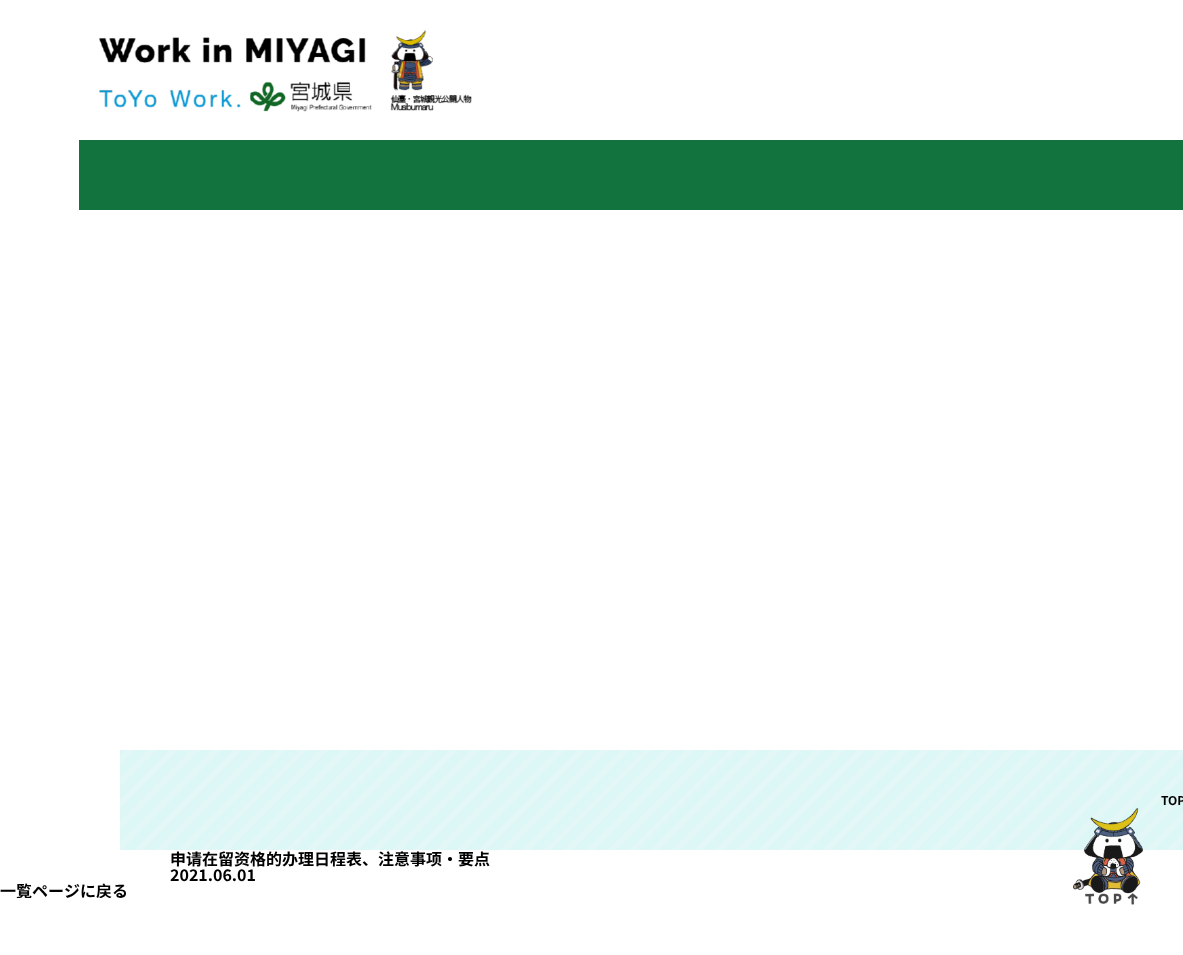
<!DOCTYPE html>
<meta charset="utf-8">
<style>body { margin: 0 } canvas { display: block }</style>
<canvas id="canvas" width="1183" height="955"></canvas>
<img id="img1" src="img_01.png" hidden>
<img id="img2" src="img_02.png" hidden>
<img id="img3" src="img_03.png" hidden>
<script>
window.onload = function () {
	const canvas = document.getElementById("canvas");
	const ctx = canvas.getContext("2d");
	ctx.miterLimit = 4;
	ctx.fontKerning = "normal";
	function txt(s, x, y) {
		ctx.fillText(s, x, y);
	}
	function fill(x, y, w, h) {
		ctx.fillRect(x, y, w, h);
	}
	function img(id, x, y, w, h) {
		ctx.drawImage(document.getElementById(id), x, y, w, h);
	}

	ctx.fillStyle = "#FFFFFF";
	fill(0, 0, 1183, 955);
	img("img1", 99, 30, 373, 82);
	ctx.fillStyle = "#13733E";
	fill(79, 140, 1104, 70);
	ctx.fillStyle = "#DDF6F6";
	fill(120, 750, 1063, 100);
	img("img2", 120, 750, 1063, 100);
	img("img3", 1073, 808, 70, 97);
	ctx.font = "100 12px Noto Sans SC";
	ctx.fillStyle = "#000000";
	txt("TOP", 1161, 805);
	ctx.font = "100 16px Noto Sans SC";
	txt("申请在留资格的办理日程表、注意事项・要点", 170, 865);
	txt("2021.06.01", 170, 881);
	ctx.save();
	ctx.beginPath();
	ctx.rect(0, 882, 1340, 16);
	ctx.clip();
	txt("一覧ページに戻る", 0, 897);
	ctx.restore();
};
</script>
